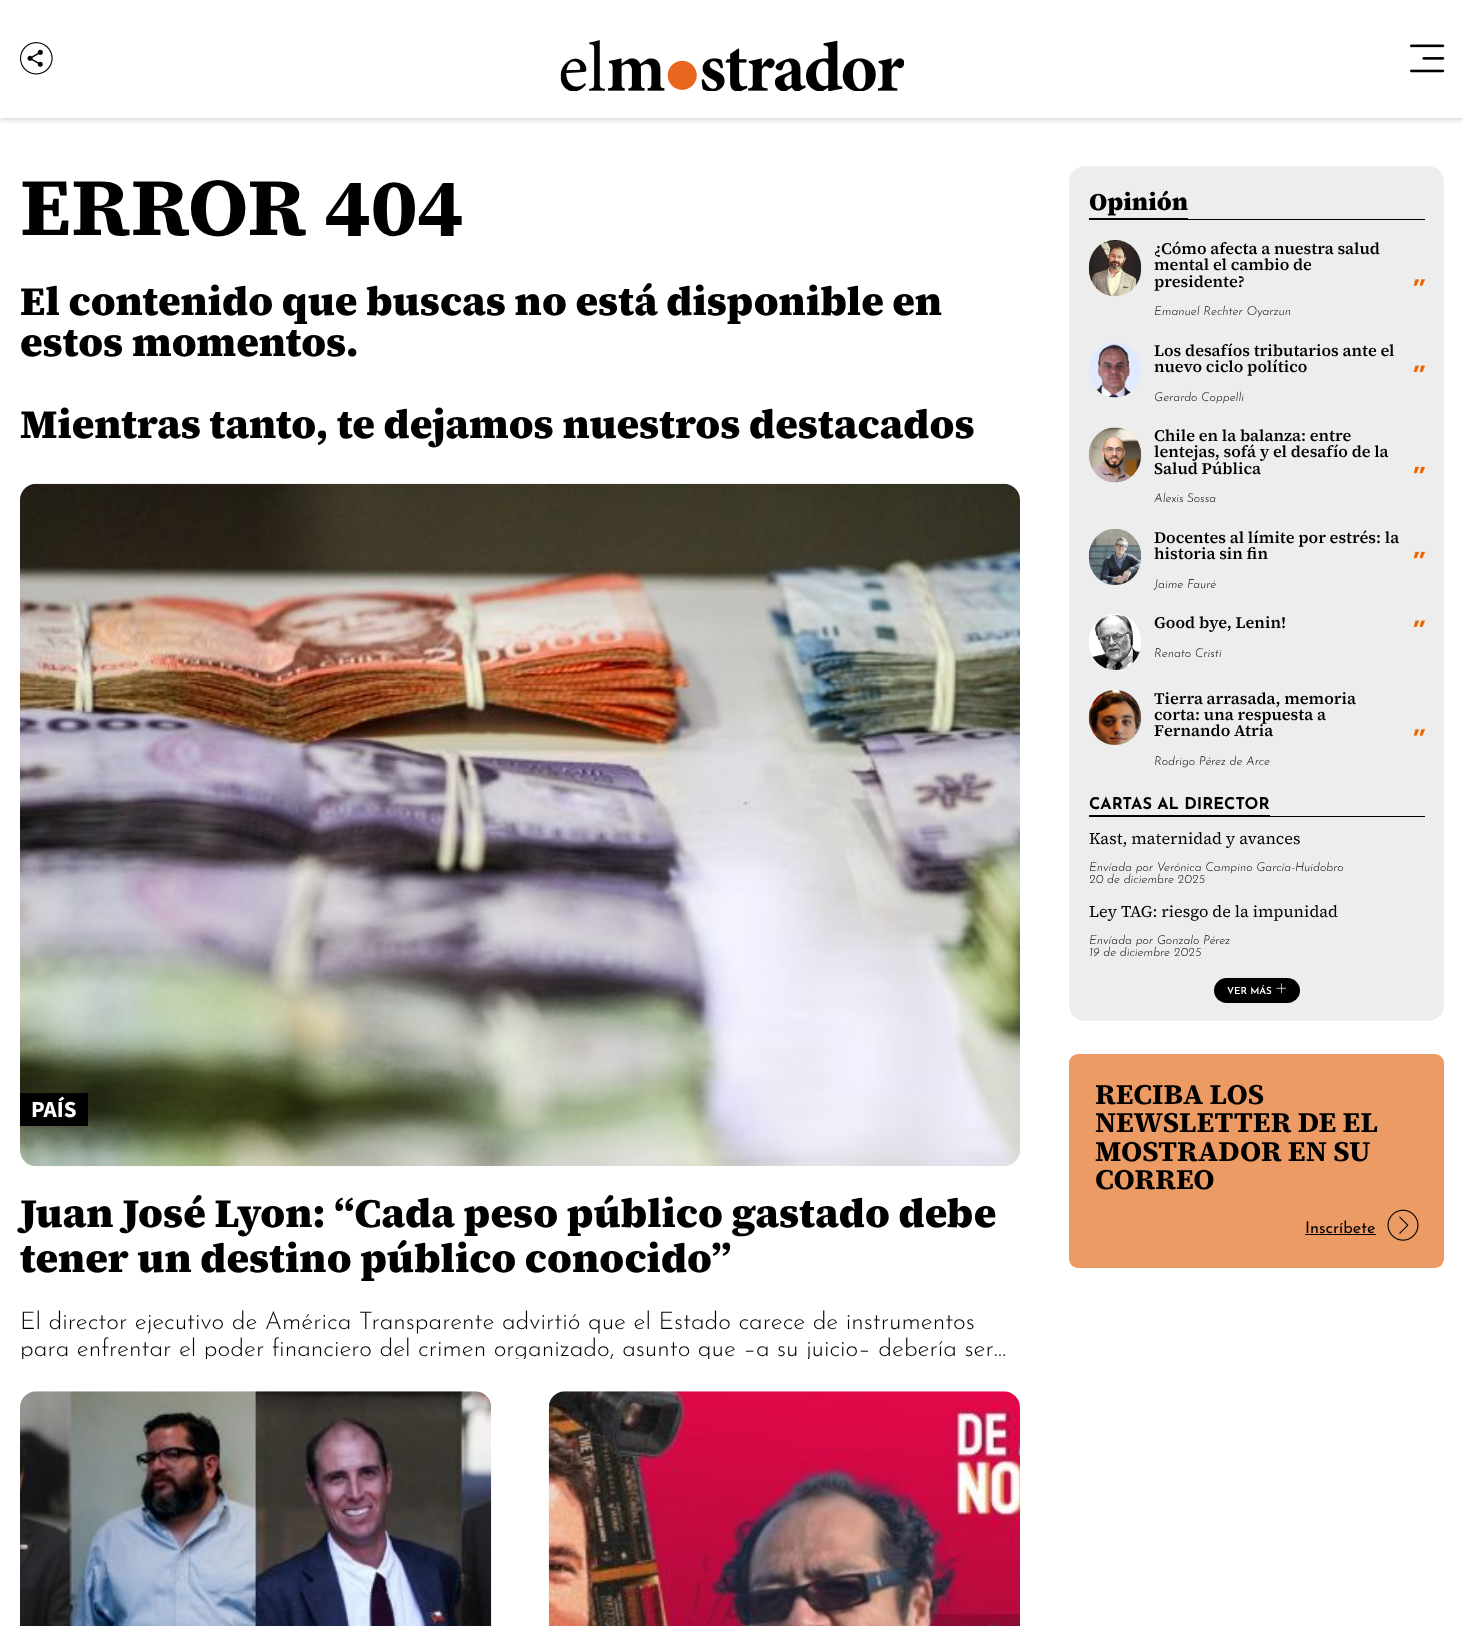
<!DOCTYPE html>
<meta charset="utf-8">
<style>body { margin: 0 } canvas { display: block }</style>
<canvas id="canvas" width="1463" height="1626"></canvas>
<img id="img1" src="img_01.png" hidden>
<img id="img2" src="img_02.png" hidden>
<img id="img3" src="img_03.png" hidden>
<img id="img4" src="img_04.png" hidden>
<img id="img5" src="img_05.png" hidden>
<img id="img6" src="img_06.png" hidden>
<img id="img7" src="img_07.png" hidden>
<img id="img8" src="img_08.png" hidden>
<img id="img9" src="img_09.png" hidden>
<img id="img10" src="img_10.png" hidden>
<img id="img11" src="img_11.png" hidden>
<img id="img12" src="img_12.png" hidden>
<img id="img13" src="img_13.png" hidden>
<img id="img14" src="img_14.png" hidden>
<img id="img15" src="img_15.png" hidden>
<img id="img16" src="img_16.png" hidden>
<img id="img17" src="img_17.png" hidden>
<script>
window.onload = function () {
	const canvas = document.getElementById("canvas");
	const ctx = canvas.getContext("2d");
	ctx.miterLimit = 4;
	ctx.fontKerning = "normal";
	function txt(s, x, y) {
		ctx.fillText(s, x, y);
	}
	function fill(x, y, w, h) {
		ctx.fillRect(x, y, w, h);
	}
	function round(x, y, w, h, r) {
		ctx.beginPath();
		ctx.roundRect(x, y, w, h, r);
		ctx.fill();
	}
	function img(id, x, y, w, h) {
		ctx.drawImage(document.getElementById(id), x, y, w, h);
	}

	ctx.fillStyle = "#FFFFFF";
	fill(0, 0, 1463, 1626);
	ctx.fillStyle = "rgba(0, 0, 0, 0.16)";
	ctx.filter = "blur(2.5px)";
	ctx.beginPath();
	ctx.rect(0, 3, 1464, 117);
	ctx.fill();
	ctx.filter = "none";
	ctx.fillStyle = "#FFFFFF";
	fill(0, 0, 1463, 118);
	img("img1", 20, 42, 33, 33);
	img("img2", 560, 40, 344, 51);
	img("img3", 1410, 44, 35, 29);
	img("img4", 20, 483, 1000, 684);
	ctx.fillStyle = "#000000";
	fill(20, 1093, 68, 33);
	img("img5", 20, 1391, 472, 235);
	img("img6", 548, 1391, 472, 235);
	ctx.fillStyle = "#EDEDED";
	round(1069, 166, 375, 855, 16);
	ctx.fillStyle = "#000000";
	fill(1089, 219, 336, 1);
	fill(1089, 218, 99, 1);
	img("img7", 1088, 240, 54, 57);
	img("img8", 1413, 279, 13, 7);
	img("img9", 1089, 342, 52, 56);
	img("img10", 1413, 365, 13, 7);
	img("img11", 1088, 427, 54, 56);
	img("img12", 1413, 466, 12, 8);
	img("img13", 1088, 528, 54, 57);
	img("img12", 1413, 551, 12, 8);
	img("img14", 1089, 614, 52, 56);
	img("img10", 1413, 620, 13, 7);
	img("img15", 1088, 690, 54, 55);
	img("img8", 1413, 729, 13, 7);
	fill(1089, 816, 336, 1);
	fill(1089, 815, 181, 1);
	round(1214, 978, 86, 25, 12.5);
	img("img16", 1276, 983, 10, 11);
	ctx.fillStyle = "#ED9B64";
	round(1069, 1054, 375, 214, 9);
	ctx.fillStyle = "#000000";
	fill(1305, 1234, 71, 1);
	img("img17", 1387, 1209, 32, 32);
	ctx.font = "bold 81.5px 'Source Serif 4'";
	txt("ERROR 404", 20, 235);
	ctx.font = "900 40.75px 'Source Serif 4'";
	txt("El contenido que buscas no está disponible en", 20, 315);
	txt("estos momentos.", 20, 356);
	txt("Mientras tanto, te dejamos nuestros destacados", 20, 438);
	ctx.font = "bold 23px Source Sans Pro";
	ctx.fillStyle = "#FFFFFF";
	txt("PAÍS", 31, 1117);
	ctx.font = "900 40.75px 'Source Serif 4'";
	ctx.fillStyle = "#000000";
	txt("Juan José Lyon: “Cada peso público gastado debe", 20, 1227);
	txt("tener un destino público conocido”", 20, 1272);
	ctx.font = "300 24.45px Josefin Sans";
	txt("El director ejecutivo de América Transparente advirtió que el Estado carece de instrumentos", 20, 1329);
	ctx.save();
	ctx.beginPath();
	ctx.rect(20, 1305, 1000, 54);
	ctx.clip();
	txt("para enfrentar el poder financiero del crimen organizado, asunto que –a su juicio– debería ser…", 20, 1356);
	ctx.restore();
	ctx.font = "900 24.45px 'Source Serif 4'";
	txt("Opinión", 1089, 210);
	ctx.font = "600 16.25px 'Source Serif 4'";
	txt("¿Cómo afecta a nuestra salud", 1154, 254);
	txt("mental el cambio de", 1154, 270);
	txt("presidente?", 1154, 287);
	ctx.font = "italic 300 12.25px Josefin Sans";
	txt("Emanuel Rechter Oyarzun", 1154, 315);
	ctx.font = "600 16.25px 'Source Serif 4'";
	txt("Los desafíos tributarios ante el", 1154, 356);
	txt("nuevo ciclo político", 1154, 372);
	ctx.font = "italic 300 12.25px Josefin Sans";
	txt("Gerardo Coppelli", 1154, 401);
	ctx.font = "600 16.25px 'Source Serif 4'";
	txt("Chile en la balanza: entre", 1154, 441);
	txt("lentejas, sofá y el desafío de la", 1154, 457);
	txt("Salud Pública", 1154, 474);
	ctx.font = "italic 300 12.25px Josefin Sans";
	txt("Alexis Sossa", 1154, 502);
	ctx.font = "600 16.25px 'Source Serif 4'";
	txt("Docentes al límite por estrés: la", 1154, 543);
	txt("historia sin fin", 1154, 559);
	ctx.font = "italic 300 12.25px Josefin Sans";
	txt("Jaime Fauré", 1154, 588);
	ctx.font = "600 16.25px 'Source Serif 4'";
	txt("Good bye, Lenin!", 1154, 628);
	ctx.font = "italic 300 12.25px Josefin Sans";
	txt("Renato Cristi", 1154, 657);
	ctx.font = "600 16.25px 'Source Serif 4'";
	txt("Tierra arrasada, memoria", 1154, 704);
	txt("corta: una respuesta a", 1154, 720);
	txt("Fernando Atria", 1154, 736);
	ctx.font = "italic 300 12.25px Josefin Sans";
	txt("Rodrigo Pérez de Arce", 1154, 765);
	ctx.font = "bold 16.25px Josefin Sans";
	txt("CARTAS AL DIRECTOR", 1089, 809);
	ctx.font = "16.25px 'Source Serif 4'";
	txt("Kast, maternidad y avances", 1089, 844);
	ctx.font = "italic 300 12.25px Josefin Sans";
	txt("Envíada por Verónica Campino García-Huidobro", 1089, 871);
	txt("20 de diciembre 2025", 1089, 883);
	ctx.font = "16.25px 'Source Serif 4'";
	txt("Ley TAG: riesgo de la impunidad", 1089, 917);
	ctx.font = "italic 300 12.25px Josefin Sans";
	txt("Envíada por Gonzalo Pérez", 1089, 944);
	txt("19 de diciembre 2025", 1089, 956);
	ctx.font = "600 9.75px Josefin Sans";
	ctx.fillStyle = "#FFFFFF";
	txt("VER MÁS", 1227, 994);
	ctx.font = "bold 28.5px 'Source Serif 4'";
	ctx.fillStyle = "#000000";
	txt("RECIBA LOS", 1095, 1104);
	txt("NEWSLETTER DE EL", 1095, 1132);
	txt("MOSTRADOR EN SU", 1095, 1161);
	txt("CORREO", 1095, 1189);
	ctx.font = "16.25px Josefin Sans";
	txt("Inscríbete", 1305, 1233);
};
</script>
